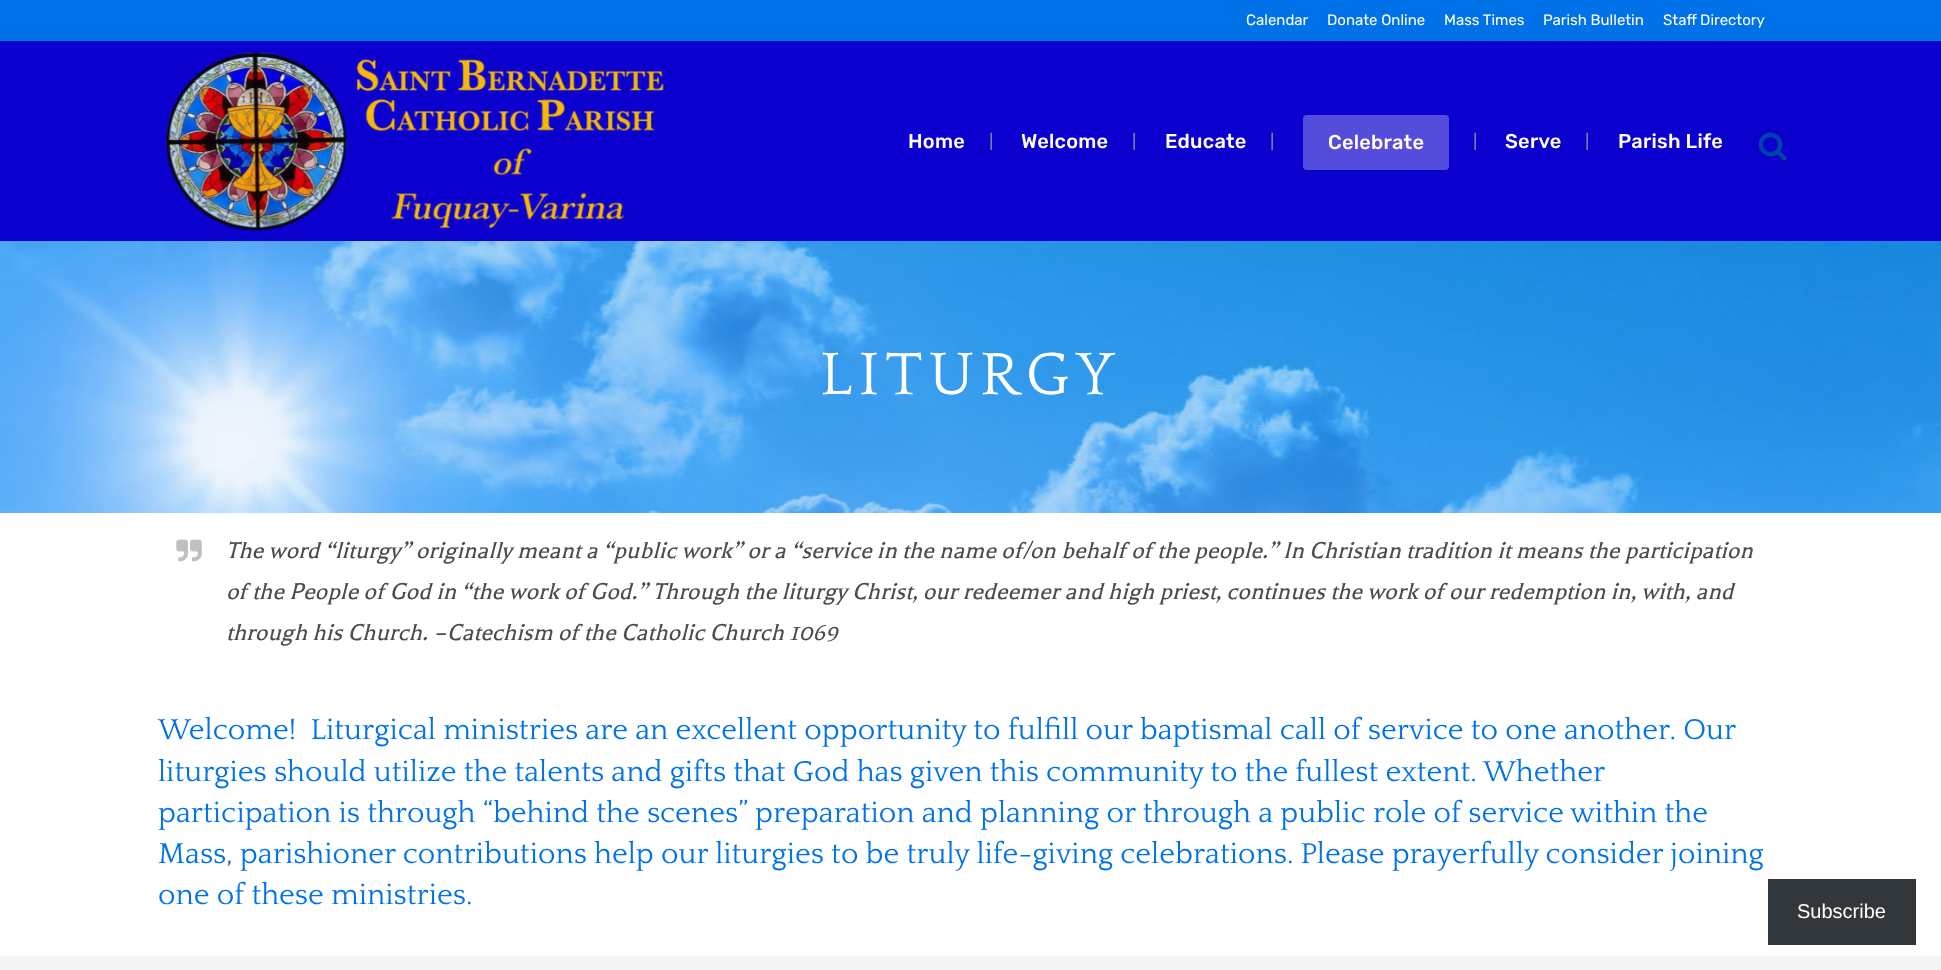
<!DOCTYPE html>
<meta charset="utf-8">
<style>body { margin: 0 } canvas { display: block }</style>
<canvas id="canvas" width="1941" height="970"></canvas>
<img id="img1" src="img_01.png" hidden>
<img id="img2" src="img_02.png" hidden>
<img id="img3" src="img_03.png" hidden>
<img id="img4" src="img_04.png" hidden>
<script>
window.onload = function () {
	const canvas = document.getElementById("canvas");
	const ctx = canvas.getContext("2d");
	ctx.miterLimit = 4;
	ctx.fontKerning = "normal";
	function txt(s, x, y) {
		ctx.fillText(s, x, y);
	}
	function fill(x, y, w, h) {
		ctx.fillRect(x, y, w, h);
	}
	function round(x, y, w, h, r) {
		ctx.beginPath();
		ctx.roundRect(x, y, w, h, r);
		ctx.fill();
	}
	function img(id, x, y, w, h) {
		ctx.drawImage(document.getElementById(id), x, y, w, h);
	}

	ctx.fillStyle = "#FFFFFF";
	fill(0, 0, 1941, 970);
	ctx.fillStyle = "#0072E9";
	fill(0, 0, 1941, 41);
	ctx.fillStyle = "#0B00CD";
	fill(0, 41, 1941, 200);
	img("img1", 165, 52, 499, 180);
	ctx.fillStyle = "#544DDC";
	round(1303, 115, 146, 55, 4);
	img("img2", 1758, 132, 29, 29);
	img("img3", 0, 241, 1941, 272);
	img("img4", 176, 539, 26, 23);
	ctx.fillStyle = "#F5F5F5";
	fill(0, 956, 1941, 14);
	ctx.fillStyle = "#32373C";
	fill(1768, 879, 148, 66);
	ctx.font = "15px Rubik";
	ctx.fillStyle = "#FFFFFF";
	txt("Calendar", 1246, 25);
	txt("Donate Online", 1327, 25);
	txt("Mass Times", 1444, 25);
	txt("Parish Bulletin", 1543, 25);
	txt("Staff Directory", 1663, 25);
	ctx.letterSpacing = "0.25px";
	ctx.font = "500 20px Rubik";
	txt("Home", 908, 148);
	ctx.letterSpacing = "0px";
	ctx.font = "19px Bitter";
	ctx.fillStyle = "#9E9E9E";
	txt("|", 988, 148);
	ctx.letterSpacing = "0.25px";
	ctx.font = "500 20px Rubik";
	ctx.fillStyle = "#FFFFFF";
	txt("Welcome", 1021, 148);
	ctx.letterSpacing = "0px";
	ctx.font = "19px Bitter";
	ctx.fillStyle = "#9E9E9E";
	txt("|", 1131, 148);
	ctx.letterSpacing = "0.25px";
	ctx.font = "500 20px Rubik";
	ctx.fillStyle = "#FFFFFF";
	txt("Educate", 1165, 148);
	ctx.letterSpacing = "0px";
	ctx.font = "19px Bitter";
	ctx.fillStyle = "#9E9E9E";
	txt("|", 1269, 148);
	ctx.letterSpacing = "0.25px";
	ctx.font = "500 20px Rubik";
	ctx.fillStyle = "#FFFFFF";
	txt("Celebrate", 1328, 149);
	ctx.letterSpacing = "0px";
	ctx.font = "19px Bitter";
	ctx.fillStyle = "#9E9E9E";
	txt("|", 1472, 148);
	ctx.letterSpacing = "0.25px";
	ctx.font = "500 20px Rubik";
	ctx.fillStyle = "#FFFFFF";
	txt("Serve", 1505, 148);
	ctx.letterSpacing = "0px";
	ctx.font = "19px Bitter";
	ctx.fillStyle = "#9E9E9E";
	txt("|", 1584, 148);
	ctx.letterSpacing = "0.25px";
	ctx.font = "500 20px Rubik";
	ctx.fillStyle = "#FFFFFF";
	txt("Parish Life", 1618, 148);
	ctx.letterSpacing = "6.25px";
	ctx.font = "62.5px Quattrocento";
	txt("LITURGY", 820, 394);
	ctx.letterSpacing = "0px";
	ctx.font = "italic 26.25px Balthazar";
	ctx.fillStyle = "#4C4C4C";
	txt("The word “liturgy” originally meant a “public work” or a “service in the name of/on behalf of the people.” In Christian tradition it means the participation", 226, 558);
	txt("of the People of God in “the work of God.” Through the liturgy Christ, our redeemer and high priest, continues the work of our redemption in, with, and", 226, 599);
	txt("through his Church. –Catechism of the Catholic Church 1069", 226, 640);
	ctx.font = "30px Quattrocento";
	ctx.fillStyle = "#0072E9";
	txt("Welcome!  Liturgical ministries are an excellent opportunity to fulfill our baptismal call of service to one another. Our", 158, 739);
	txt("liturgies should utilize the talents and gifts that God has given this community to the fullest extent. Whether", 158, 781);
	txt("participation is through “behind the scenes” preparation and planning or through a public role of service within the", 158, 822);
	txt("Mass, parishioner contributions help our liturgies to be truly life-giving celebrations. Please prayerfully consider joining", 158, 863);
	txt("one of these ministries.", 158, 904);
	ctx.font = "20px Liberation Sans";
	ctx.fillStyle = "#FFFFFF";
	txt("Subscribe", 1797, 918);
};
</script>
